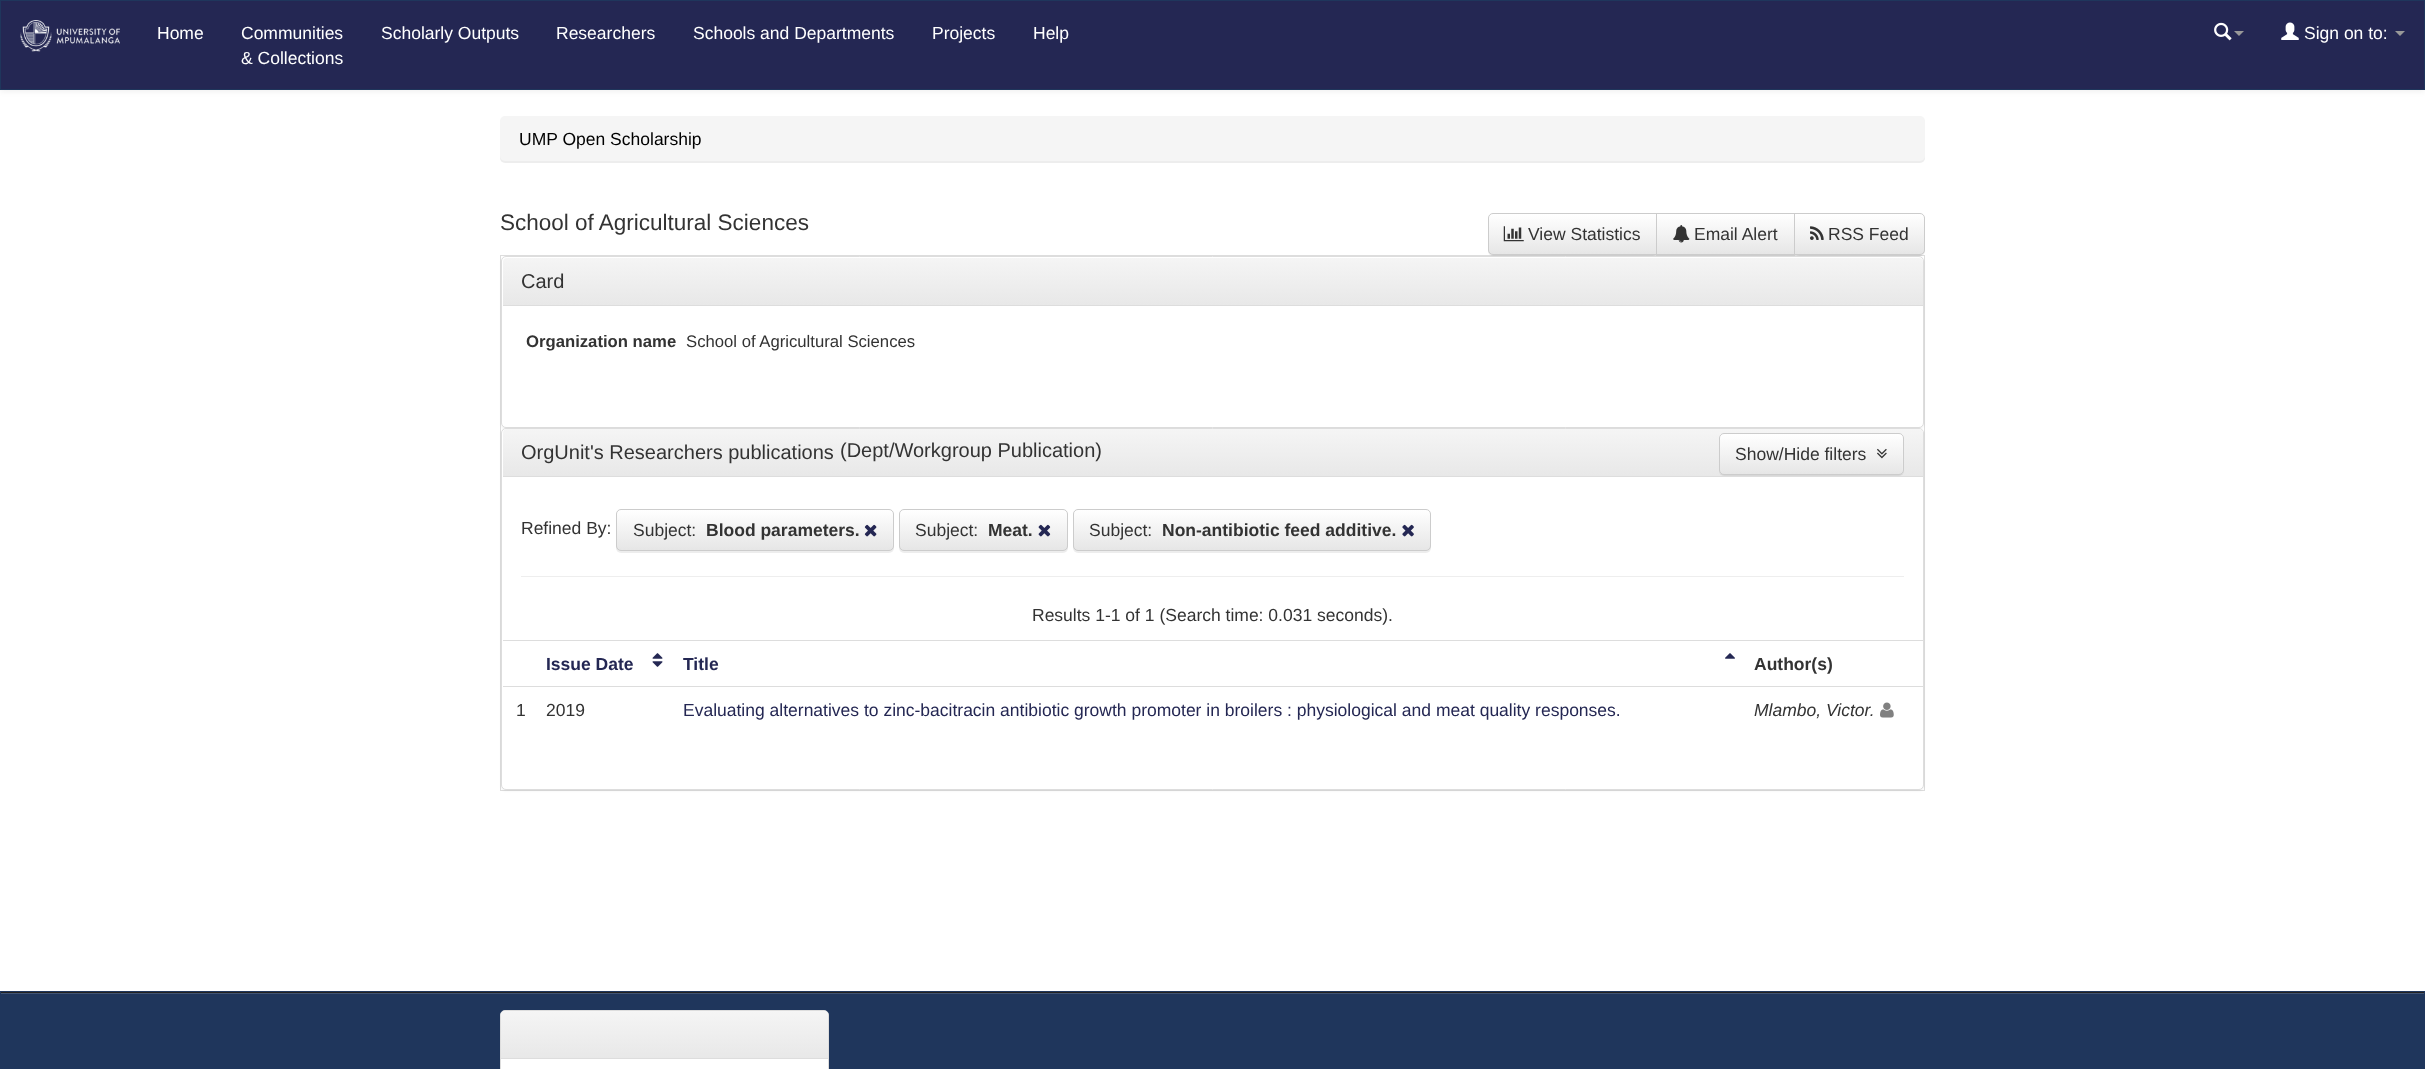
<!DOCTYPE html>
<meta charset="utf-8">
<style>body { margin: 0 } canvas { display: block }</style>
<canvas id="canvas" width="2425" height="1069"></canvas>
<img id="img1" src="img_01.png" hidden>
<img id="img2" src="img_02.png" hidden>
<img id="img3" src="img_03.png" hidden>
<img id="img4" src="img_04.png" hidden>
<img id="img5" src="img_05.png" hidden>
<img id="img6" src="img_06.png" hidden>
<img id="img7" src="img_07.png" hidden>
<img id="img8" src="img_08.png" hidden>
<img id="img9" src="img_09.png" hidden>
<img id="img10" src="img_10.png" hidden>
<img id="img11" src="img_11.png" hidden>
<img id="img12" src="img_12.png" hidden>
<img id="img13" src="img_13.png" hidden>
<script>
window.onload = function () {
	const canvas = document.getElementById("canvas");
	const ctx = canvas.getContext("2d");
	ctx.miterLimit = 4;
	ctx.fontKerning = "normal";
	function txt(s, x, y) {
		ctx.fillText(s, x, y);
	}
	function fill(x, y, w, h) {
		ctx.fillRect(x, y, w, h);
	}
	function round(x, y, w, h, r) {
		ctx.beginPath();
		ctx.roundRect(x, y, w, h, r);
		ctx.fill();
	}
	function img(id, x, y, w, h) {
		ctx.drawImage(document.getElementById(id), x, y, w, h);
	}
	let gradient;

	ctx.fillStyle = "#FFFFFF";
	fill(0, 0, 2425, 1069);
	ctx.fillStyle = "rgba(0, 0, 0, 0.07)";
	ctx.filter = "blur(3px)";
	ctx.beginPath();
	ctx.rect(0, 1, 2425, 90);
	ctx.fill();
	ctx.filter = "none";
	ctx.strokeStyle = "#1F365C";
	ctx.strokeRect(0.5, 0.5, 2424, 89);
	ctx.fillStyle = "#242753";
	fill(1, 1, 2423, 88);
	img("img1", 20, 20, 100, 32);
	img("img2", 2214, 22, 18, 19);
	ctx.fillStyle = "#999999";
	ctx.beginPath();
	ctx.moveTo(2234, 31);
	ctx.lineTo(2244, 31);
	ctx.lineTo(2239, 36);
	ctx.closePath();
	ctx.fill();
	img("img3", 2281, 22, 18, 18);
	ctx.beginPath();
	ctx.moveTo(2395, 31);
	ctx.lineTo(2405, 31);
	ctx.lineTo(2400, 36);
	ctx.closePath();
	ctx.fill();
	ctx.fillStyle = "rgba(0, 0, 0, 0.07)";
	ctx.filter = "blur(0.5px)";
	ctx.beginPath();
	ctx.roundRect(500, 118, 1425, 45, 5);
	ctx.fill();
	ctx.filter = "none";
	ctx.fillStyle = "#F5F5F5";
	round(500, 116, 1425, 45, 5);
	ctx.fillStyle = "#DDDDDD";
	fill(500, 255, 1425, 1);
	ctx.fillStyle = "rgba(0, 0, 0, 0.07)";
	ctx.filter = "blur(0.5px)";
	ctx.beginPath();
	ctx.roundRect(1488, 214, 170, 42, 5);
	ctx.fill();
	ctx.filter = "none";
	ctx.save();
	ctx.beginPath();
	ctx.roundRect(1488, 213, 170, 42, [5, 0, 0, 5]);
	ctx.clip();
	gradient = ctx.createLinearGradient(1573, 214, 1573, 254);
	gradient.addColorStop(0, "#FFFFFF");
	gradient.addColorStop(1, "#E6E6E6");
	ctx.fillStyle = gradient;
	fill(1488, 214, 168, 40);
	ctx.restore();
	ctx.beginPath();
	ctx.roundRect(1488.5, 213.5, 169, 41, [4.5, 0, 0, 4.5]);
	ctx.strokeStyle = "#CCCCCC";
	ctx.stroke();
	img("img4", 1503, 226, 21, 16);
	ctx.filter = "blur(0.5px)";
	ctx.beginPath();
	ctx.rect(1656, 214, 139, 42);
	ctx.fill();
	ctx.filter = "none";
	gradient = ctx.createLinearGradient(1726, 214, 1726, 254);
	gradient.addColorStop(0, "#FFFFFF");
	gradient.addColorStop(1, "#E6E6E6");
	ctx.fillStyle = gradient;
	fill(1657, 214, 137, 40);
	ctx.strokeRect(1656.5, 213.5, 138, 41);
	img("img5", 1673, 225, 17, 18);
	ctx.fillStyle = "#DDDDDD";
	fill(1924, 256, 1, 535);
	ctx.fillStyle = "rgba(0, 0, 0, 0.07)";
	ctx.filter = "blur(0.5px)";
	ctx.beginPath();
	ctx.roundRect(1794, 214, 131, 42, 5);
	ctx.fill();
	ctx.filter = "none";
	ctx.save();
	ctx.beginPath();
	ctx.roundRect(1794, 213, 131, 42, [0, 5, 5, 0]);
	ctx.clip();
	gradient = ctx.createLinearGradient(1859, 214, 1859, 254);
	gradient.addColorStop(0, "#FFFFFF");
	gradient.addColorStop(1, "#E6E6E6");
	ctx.fillStyle = gradient;
	fill(1795, 214, 130, 40);
	ctx.restore();
	ctx.beginPath();
	ctx.roundRect(1794.5, 213.5, 130, 41, [0, 4.5, 4.5, 0]);
	ctx.stroke();
	img("img6", 1810, 226, 14, 14);
	ctx.fillStyle = "#DDDDDD";
	fill(500, 790, 1425, 1);
	fill(500, 256, 1, 535);
	ctx.fillStyle = "rgba(0, 0, 0, 0.05)";
	ctx.filter = "blur(1px)";
	ctx.beginPath();
	ctx.roundRect(501, 258, 1423, 171, 5);
	ctx.fill();
	ctx.filter = "none";
	ctx.fillStyle = "#FFFFFF";
	ctx.beginPath();
	ctx.roundRect(501.5, 256.5, 1422, 171, 4.5);
	ctx.fill();
	ctx.strokeStyle = "#DDDDDD";
	ctx.stroke();
	gradient = ctx.createLinearGradient(1213, 257, 1213, 305);
	gradient.addColorStop(0, "#F5F5F5");
	gradient.addColorStop(1, "#E8E8E8");
	ctx.fillStyle = gradient;
	ctx.beginPath();
	ctx.roundRect(503, 258, 1420, 47, [4, 4, 0, 0]);
	ctx.fill();
	ctx.fillStyle = "#DDDDDD";
	fill(503, 305, 1420, 1);
	ctx.fillStyle = "rgba(0, 0, 0, 0.05)";
	ctx.filter = "blur(1px)";
	ctx.beginPath();
	ctx.roundRect(501, 429, 1423, 362, 5);
	ctx.fill();
	ctx.filter = "none";
	ctx.fillStyle = "#FFFFFF";
	ctx.beginPath();
	ctx.roundRect(501.5, 428.5, 1422, 361, 4.5);
	ctx.fill();
	ctx.stroke();
	gradient = ctx.createLinearGradient(1213, 429, 1213, 476);
	gradient.addColorStop(0, "#F5F5F5");
	gradient.addColorStop(1, "#E8E8E8");
	ctx.fillStyle = gradient;
	ctx.beginPath();
	ctx.roundRect(503, 429, 1420, 47, [4, 4, 0, 0]);
	ctx.fill();
	ctx.fillStyle = "#DDDDDD";
	fill(503, 476, 1420, 1);
	ctx.fillStyle = "rgba(0, 0, 0, 0.07)";
	ctx.filter = "blur(0.5px)";
	ctx.beginPath();
	ctx.roundRect(1719, 434, 185, 42, 5);
	ctx.fill();
	ctx.filter = "none";
	ctx.save();
	ctx.beginPath();
	ctx.roundRect(1719, 433, 185, 42, 5);
	ctx.clip();
	gradient = ctx.createLinearGradient(1811, 434, 1811, 474);
	gradient.addColorStop(0, "#FFFFFF");
	gradient.addColorStop(1, "#E6E6E6");
	ctx.fillStyle = gradient;
	fill(1719, 434, 185, 40);
	ctx.restore();
	ctx.fillStyle = "rgba(255, 255, 255, 0.15)";
	ctx.beginPath();
	ctx.moveTo(1724, 435);
	ctx.lineTo(1899, 435);
	ctx.bezierCurveTo(1904, 435, 1902, 448, 1902, 450);
	ctx.lineTo(1902, 473);
	ctx.bezierCurveTo(1902, 472, 1903, 471, 1903, 470);
	ctx.lineTo(1903, 438);
	ctx.bezierCurveTo(1903, 436, 1901, 434, 1899, 434);
	ctx.lineTo(1724, 434);
	ctx.bezierCurveTo(1722, 434, 1720, 436, 1720, 438);
	ctx.lineTo(1720, 439);
	ctx.bezierCurveTo(1720, 437, 1722, 435, 1724, 435);
	ctx.closePath();
	ctx.fill();
	ctx.beginPath();
	ctx.roundRect(1719.5, 433.5, 184, 41, 4.5);
	ctx.strokeStyle = "#CCCCCC";
	ctx.stroke();
	img("img7", 1877, 448, 10, 11);
	ctx.fillStyle = "rgba(0, 0, 0, 0.07)";
	ctx.filter = "blur(0.5px)";
	ctx.beginPath();
	ctx.roundRect(616, 510, 278, 43, 5);
	ctx.fill();
	ctx.filter = "none";
	ctx.save();
	ctx.beginPath();
	ctx.roundRect(616, 509, 278, 42, 5);
	ctx.clip();
	gradient = ctx.createLinearGradient(755, 510, 755, 550);
	gradient.addColorStop(0, "#FFFFFF");
	gradient.addColorStop(1, "#E6E6E6");
	ctx.fillStyle = gradient;
	fill(616, 510, 278, 40);
	ctx.restore();
	ctx.fillStyle = "rgba(255, 255, 255, 0.15)";
	ctx.beginPath();
	ctx.moveTo(621, 511);
	ctx.lineTo(889, 511);
	ctx.bezierCurveTo(891, 511, 892, 513, 892, 515);
	ctx.lineTo(892, 549);
	ctx.bezierCurveTo(893, 548, 893, 547, 893, 546);
	ctx.lineTo(893, 514);
	ctx.bezierCurveTo(893, 512, 891, 510, 889, 510);
	ctx.lineTo(622, 510);
	ctx.bezierCurveTo(620, 510, 618, 512, 618, 514);
	ctx.lineTo(618, 515);
	ctx.bezierCurveTo(618, 513, 619, 511, 621, 511);
	ctx.closePath();
	ctx.fill();
	ctx.beginPath();
	ctx.roundRect(616.5, 509.5, 277, 41, 4.5);
	ctx.stroke();
	img("img8", 864, 524, 13, 13);
	ctx.fillStyle = "rgba(0, 0, 0, 0.07)";
	ctx.filter = "blur(0.5px)";
	ctx.beginPath();
	ctx.roundRect(899, 510, 169, 43, 5);
	ctx.fill();
	ctx.filter = "none";
	ctx.save();
	ctx.beginPath();
	ctx.roundRect(899, 509, 169, 42, 5);
	ctx.clip();
	gradient = ctx.createLinearGradient(983, 510, 983, 550);
	gradient.addColorStop(0, "#FFFFFF");
	gradient.addColorStop(1, "#E6E6E6");
	ctx.fillStyle = gradient;
	fill(899, 510, 169, 40);
	ctx.restore();
	ctx.beginPath();
	ctx.roundRect(899.5, 509.5, 168, 41, 4.5);
	ctx.stroke();
	img("img9", 1038, 524, 13, 13);
	ctx.filter = "blur(0.5px)";
	ctx.beginPath();
	ctx.roundRect(1073, 510, 358, 43, 5);
	ctx.fill();
	ctx.filter = "none";
	ctx.save();
	ctx.beginPath();
	ctx.roundRect(1073, 509, 358, 42, 5);
	ctx.clip();
	gradient = ctx.createLinearGradient(1252, 510, 1252, 550);
	gradient.addColorStop(0, "#FFFFFF");
	gradient.addColorStop(1, "#E6E6E6");
	ctx.fillStyle = gradient;
	fill(1073, 510, 358, 40);
	ctx.restore();
	ctx.beginPath();
	ctx.roundRect(1073.5, 509.5, 357, 41, 4.5);
	ctx.stroke();
	img("img10", 1402, 524, 12, 13);
	ctx.fillStyle = "#EEEEEE";
	fill(521, 576, 1383, 1);
	img("img11", 652, 653, 11, 14);
	img("img12", 1725, 653, 10, 6);
	ctx.fillStyle = "#DDDDDD";
	fill(503, 640, 1420, 1);
	fill(503, 686, 1420, 1);
	img("img13", 1880, 702, 14, 16);
	ctx.fillStyle = "#222222";
	fill(1, 992, 2423, 1);
	ctx.fillStyle = "#1F365C";
	fill(1, 994, 2423, 75);
	ctx.fillStyle = "#415474";
	fill(1, 993, 2423, 1);
	ctx.strokeStyle = "#1F365C";
	ctx.strokeRect(0.5, 991.5, 2424, 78);
	ctx.fillStyle = "#FFFFFF";
	ctx.beginPath();
	ctx.roundRect(500.5, 1010.5, 328, 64, 4.5);
	ctx.fill();
	ctx.strokeStyle = "#DDDDDD";
	ctx.stroke();
	gradient = ctx.createLinearGradient(664, 1011, 664, 1058);
	gradient.addColorStop(0, "#F5F5F5");
	gradient.addColorStop(1, "#E8E8E8");
	ctx.fillStyle = gradient;
	ctx.beginPath();
	ctx.roundRect(501, 1011, 327, 47, [4, 4, 0, 0]);
	ctx.fill();
	ctx.fillStyle = "#DDDDDD";
	fill(501, 1058, 327, 1);
	ctx.font = "17.5px Liberation Sans";
	ctx.fillStyle = "#FFFFFF";
	txt("Home", 157, 39);
	txt("Communities", 241, 39);
	txt("& Collections", 241, 64);
	txt("Scholarly Outputs", 381, 39);
	txt("Researchers", 556, 39);
	txt("Schools and Departments", 693, 39);
	txt("Projects", 932, 39);
	txt("Help", 1033, 39);
	txt("Sign on to:", 2304, 39);
	ctx.fillStyle = "#000000";
	txt("UMP Open Scholarship", 519, 145);
	ctx.font = "22.5px Liberation Sans";
	ctx.fillStyle = "#333333";
	txt("School of Agricultural Sciences", 500, 230);
	ctx.font = "17.5px Liberation Sans";
	txt("View Statistics", 1528, 240);
	txt("Email Alert", 1694, 240);
	txt("RSS Feed", 1828, 240);
	ctx.font = "20px Liberation Sans";
	txt("Card", 521, 288);
	ctx.font = "bold 16.7px Liberation Sans";
	txt("Organization name", 526, 347);
	ctx.font = "16.7px Liberation Sans";
	txt("School of Agricultural Sciences", 686, 347);
	ctx.font = "20px Liberation Sans";
	txt("OrgUnit's Researchers publications", 521, 459);
	txt("(Dept/Workgroup Publication)", 840, 457);
	ctx.font = "17.5px Liberation Sans";
	txt("Show/Hide filters", 1735, 460);
	txt("Refined By:", 521, 534);
	txt("Subject:", 633, 536);
	ctx.font = "bold 17.5px Liberation Sans";
	txt("Blood parameters.", 706, 536);
	ctx.font = "17.5px Liberation Sans";
	txt("Subject:", 915, 536);
	ctx.font = "bold 17.5px Liberation Sans";
	txt("Meat.", 988, 536);
	ctx.font = "17.5px Liberation Sans";
	txt("Subject:", 1089, 536);
	ctx.font = "bold 17.5px Liberation Sans";
	txt("Non-antibiotic feed additive.", 1162, 536);
	ctx.font = "17.5px Liberation Sans";
	txt("Results 1-1 of 1 (Search time: 0.031 seconds).", 1032, 621);
	ctx.font = "bold 17.5px Liberation Sans";
	ctx.fillStyle = "#242753";
	txt("Issue Date", 546, 670);
	txt("Title", 683, 670);
	ctx.fillStyle = "#333333";
	txt("Author(s)", 1754, 670);
	ctx.font = "17.5px Liberation Sans";
	txt("1", 516, 716);
	txt("2019", 546, 716);
	ctx.fillStyle = "#242753";
	txt("Evaluating alternatives to zinc-bacitracin antibiotic growth promoter in broilers : physiological and meat quality responses.", 683, 716);
	ctx.font = "italic 17.5px Liberation Sans";
	ctx.fillStyle = "#333333";
	txt("Mlambo, Victor.", 1754, 716);
};
</script>
